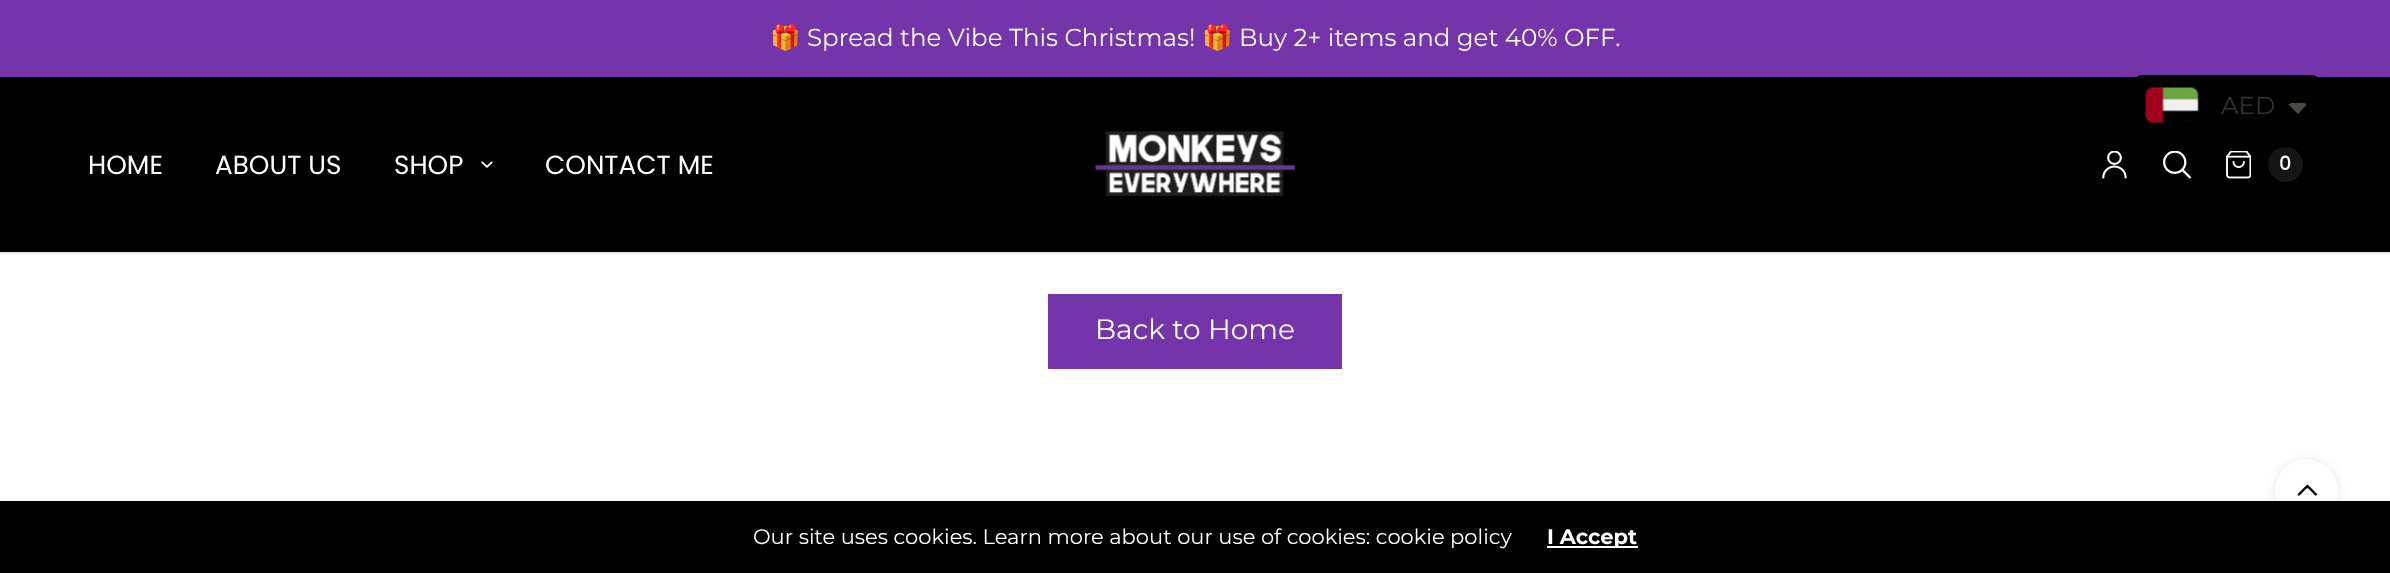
<!DOCTYPE html>
<meta charset="utf-8">
<style>body { margin: 0 } canvas { display: block }</style>
<canvas id="canvas" width="2390" height="573"></canvas>
<img id="img1" src="img_01.png" hidden>
<img id="img2" src="img_02.png" hidden>
<img id="img3" src="img_03.png" hidden>
<img id="img4" src="img_04.png" hidden>
<img id="img5" src="img_05.png" hidden>
<img id="img6" src="img_06.png" hidden>
<img id="img7" src="img_07.png" hidden>
<script>
window.onload = function () {
	const canvas = document.getElementById("canvas");
	const ctx = canvas.getContext("2d");
	ctx.miterLimit = 4;
	ctx.fontKerning = "normal";
	function txt(s, x, y) {
		ctx.fillText(s, x, y);
	}
	function fill(x, y, w, h) {
		ctx.fillRect(x, y, w, h);
	}
	function round(x, y, w, h, r) {
		ctx.beginPath();
		ctx.roundRect(x, y, w, h, r);
		ctx.fill();
	}
	function img(id, x, y, w, h) {
		ctx.drawImage(document.getElementById(id), x, y, w, h);
	}

	ctx.fillStyle = "#FFFFFF";
	fill(0, 0, 2390, 573);
	ctx.fillStyle = "#7435AA";
	fill(0, 0, 2390, 77);
	ctx.fillStyle = "#000000";
	fill(0, 77, 2390, 175);
	ctx.fillStyle = "#EAEAEA";
	fill(0, 252, 2390, 2);
	img("img1", 481, 161, 12, 7);
	img("img2", 1095, 131, 200, 66);
	img("img3", 2102, 151, 25, 28);
	img("img4", 2163, 151, 28, 28);
	img("img5", 2226, 151, 25, 28);
	ctx.fillStyle = "#151515";
	ctx.beginPath();
	ctx.arc(2285.5, 164.5, 17.5, 0, Math.PI * 2);
	ctx.fill();
	ctx.fillStyle = "#7435AA";
	fill(1048, 294, 294, 75);
	ctx.fillStyle = "#000000";
	round(2133, 75, 188, 60, 9);
	img("img6", 2145, 87, 54, 36);
	ctx.fillStyle = "#474942";
	ctx.beginPath();
	ctx.moveTo(2288.5, 104.5);
	ctx.bezierCurveTo(2289.5, 104, 2290, 103.5, 2291, 103);
	ctx.lineTo(2304.5, 103);
	ctx.bezierCurveTo(2305.5, 103.5, 2306, 104, 2306.5, 105);
	ctx.lineTo(2298, 114);
	ctx.closePath();
	ctx.fill();
	ctx.fillStyle = "rgba(0, 0, 0, 0.1)";
	ctx.filter = "blur(5px)";
	ctx.beginPath();
	ctx.roundRect(2275, 460, 63, 63, 31.5);
	ctx.fill();
	ctx.filter = "none";
	ctx.fillStyle = "#FFFFFF";
	ctx.beginPath();
	ctx.arc(2306.5, 490.5, 31.5, 0, Math.PI * 2);
	ctx.fill();
	ctx.fillStyle = "#000000";
	fill(0, 501, 2390, 72);
	ctx.fillStyle = "#FFFFFF";
	fill(1547, 546, 91, 2);
	img("img7", 2297, 484, 20, 12);
	ctx.font = "24.5px Noto Color Emoji";
	txt("🎁", 770, 46);
	ctx.font = "24.5px Montserrat";
	txt("Spread the Vibe This Christmas!", 807, 46);
	ctx.font = "24.5px Noto Color Emoji";
	txt("🎁", 1202, 46);
	ctx.font = "24.5px Montserrat";
	txt("Buy 2+ items and get 40% OFF.", 1239, 46);
	ctx.font = "26.25px Poppins";
	txt("HOME", 88, 174);
	txt("ABOUT US", 215, 174);
	txt("SHOP", 394, 174);
	txt("CONTACT ME", 545, 174);
	ctx.font = "bold 19px Poppins";
	txt("0", 2279, 170);
	ctx.font = "28px Montserrat";
	txt("Back to Home", 1095, 339);
	ctx.font = "24.5px Montserrat";
	ctx.fillStyle = "#333333";
	txt("AED", 2221, 114);
	ctx.font = "21px Montserrat";
	ctx.fillStyle = "#FFFFFF";
	txt("Our site uses cookies. Learn more about our use of cookies: cookie policy", 753, 544);
	ctx.font = "bold 21px Montserrat";
	txt("I Accept", 1547, 544);
};
</script>
